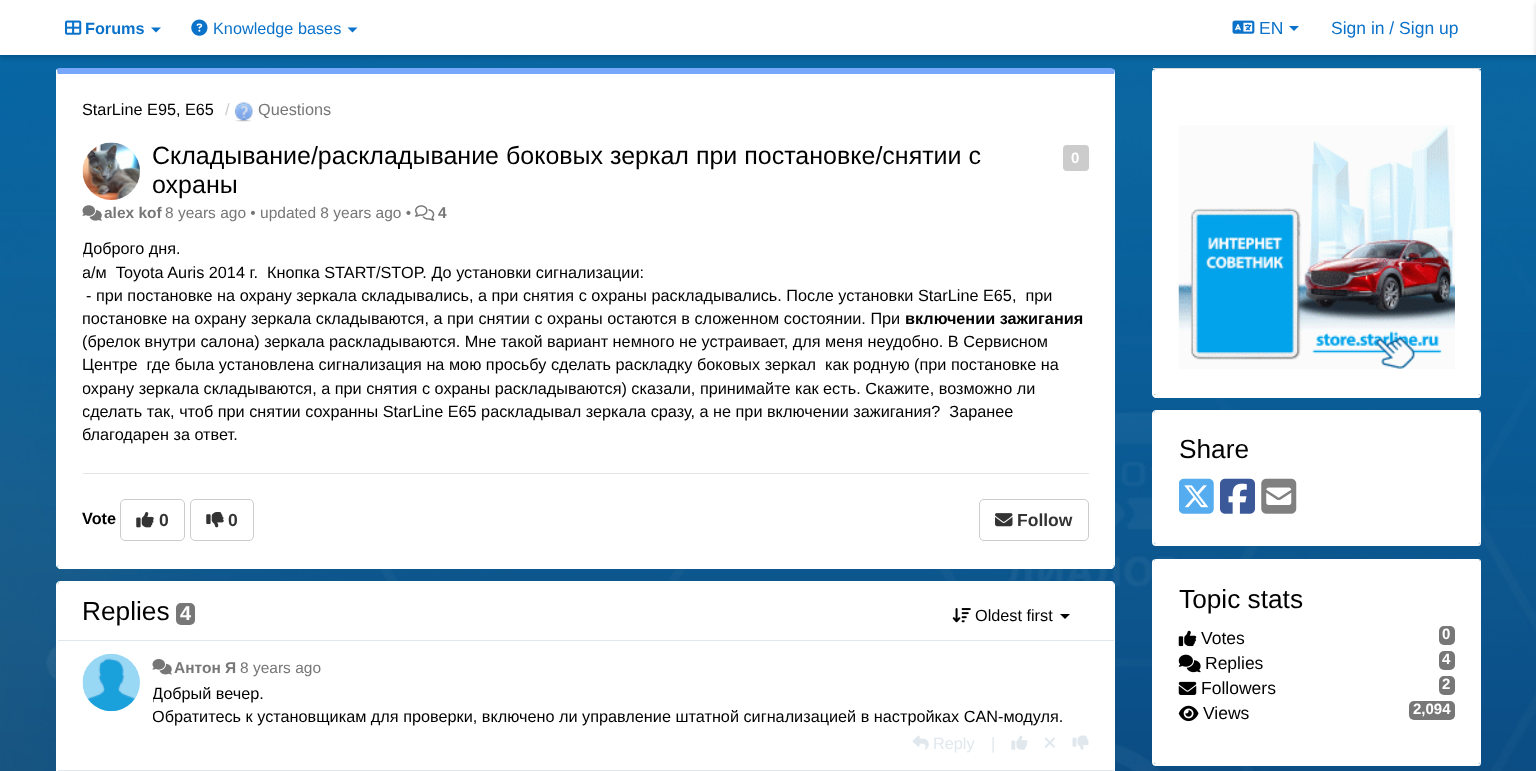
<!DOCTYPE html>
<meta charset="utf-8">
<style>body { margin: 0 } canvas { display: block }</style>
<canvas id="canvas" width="1536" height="771"></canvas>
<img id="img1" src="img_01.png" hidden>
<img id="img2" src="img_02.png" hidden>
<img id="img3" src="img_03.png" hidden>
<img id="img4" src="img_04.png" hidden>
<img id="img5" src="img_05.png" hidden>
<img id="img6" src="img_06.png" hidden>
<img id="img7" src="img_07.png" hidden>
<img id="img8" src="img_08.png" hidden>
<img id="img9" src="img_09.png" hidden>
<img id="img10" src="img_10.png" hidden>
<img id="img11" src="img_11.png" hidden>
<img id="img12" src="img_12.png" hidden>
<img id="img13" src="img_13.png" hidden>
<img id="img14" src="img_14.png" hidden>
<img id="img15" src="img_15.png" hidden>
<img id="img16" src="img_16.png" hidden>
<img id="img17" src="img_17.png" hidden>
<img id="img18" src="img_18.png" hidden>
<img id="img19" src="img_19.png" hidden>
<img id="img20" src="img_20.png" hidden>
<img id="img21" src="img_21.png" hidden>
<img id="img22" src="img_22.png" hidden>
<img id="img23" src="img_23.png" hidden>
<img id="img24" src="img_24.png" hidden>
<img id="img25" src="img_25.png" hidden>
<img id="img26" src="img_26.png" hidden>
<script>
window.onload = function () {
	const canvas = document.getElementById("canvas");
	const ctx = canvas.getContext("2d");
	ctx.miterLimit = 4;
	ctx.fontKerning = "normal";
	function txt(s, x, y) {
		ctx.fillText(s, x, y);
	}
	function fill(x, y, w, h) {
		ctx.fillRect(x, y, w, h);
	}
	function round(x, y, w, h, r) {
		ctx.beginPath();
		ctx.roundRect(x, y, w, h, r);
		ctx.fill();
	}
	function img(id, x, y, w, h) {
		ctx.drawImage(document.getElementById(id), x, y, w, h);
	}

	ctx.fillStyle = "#FFFFFF";
	fill(0, 0, 1536, 771);
	img("img1", 0, 55, 1536, 716);
	ctx.fillStyle = "rgba(0, 0, 0, 0.15)";
	ctx.filter = "blur(2.5px)";
	ctx.beginPath();
	ctx.rect(0, 3, 1536, 55);
	ctx.fill();
	ctx.filter = "none";
	ctx.fillStyle = "#FFFFFF";
	fill(0, 0, 1536, 55);
	img("img2", 65, 20, 17, 15);
	ctx.fillStyle = "#0B72CA";
	ctx.beginPath();
	ctx.moveTo(151, 27.5);
	ctx.lineTo(161, 27.5);
	ctx.lineTo(156, 32.5);
	ctx.closePath();
	ctx.fill();
	img("img3", 191, 19, 17, 17);
	ctx.beginPath();
	ctx.moveTo(347.5, 27.5);
	ctx.lineTo(357.5, 27.5);
	ctx.lineTo(352.5, 32.5);
	ctx.closePath();
	ctx.fill();
	img("img4", 1232, 20, 23, 14);
	ctx.beginPath();
	ctx.moveTo(1289, 26);
	ctx.lineTo(1299, 26);
	ctx.lineTo(1294, 31);
	ctx.closePath();
	ctx.fill();
	ctx.fillStyle = "rgba(0, 0, 0, 0.15)";
	ctx.filter = "blur(2.5px)";
	ctx.beginPath();
	ctx.rect(1536, 3, 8, 55);
	ctx.fill();
	ctx.filter = "none";
	ctx.fillStyle = "#FFFFFF";
	ctx.beginPath();
	ctx.moveTo(60, 74);
	ctx.lineTo(1114, 74);
	ctx.lineTo(1114, 565);
	ctx.bezierCurveTo(1114, 566, 1113, 566, 1111, 566);
	ctx.lineTo(60, 566);
	ctx.bezierCurveTo(59, 566, 58, 566, 58, 565);
	ctx.lineTo(58, 74);
	ctx.closePath();
	ctx.fill();
	ctx.fillStyle = "#76A7FA";
	ctx.beginPath();
	ctx.moveTo(60, 68);
	ctx.bezierCurveTo(59, 68, 57, 68, 57, 69);
	ctx.lineTo(58, 76);
	ctx.lineTo(58, 74);
	ctx.lineTo(1114, 74);
	ctx.lineTo(1115, 70);
	ctx.bezierCurveTo(1114, 69, 1112, 68, 1111, 68);
	ctx.closePath();
	ctx.fill();
	ctx.fillStyle = "#FFFFFF";
	ctx.beginPath();
	ctx.moveTo(1115, 565);
	ctx.lineTo(1115, 71);
	ctx.lineTo(1115, 70);
	ctx.lineTo(1114, 74);
	ctx.lineTo(1114, 565);
	ctx.lineTo(1114, 566);
	ctx.lineTo(1114, 567);
	ctx.closePath();
	ctx.fill();
	ctx.beginPath();
	ctx.moveTo(59, 569);
	ctx.lineTo(57, 567);
	ctx.lineTo(58, 565);
	ctx.bezierCurveTo(58, 566, 59, 566, 60, 566);
	ctx.lineTo(1114, 566);
	ctx.lineTo(1114, 567);
	ctx.lineTo(1112, 569);
	ctx.closePath();
	ctx.fill();
	ctx.beginPath();
	ctx.moveTo(56, 70);
	ctx.lineTo(57, 69);
	ctx.bezierCurveTo(63, 100, 58, 110, 58, 158);
	ctx.lineTo(58, 565);
	ctx.lineTo(57, 567);
	ctx.lineTo(56, 566);
	ctx.closePath();
	ctx.fill();
	img("img5", 234, 102, 19, 20);
	img("img6", 82, 142, 58, 58);
	ctx.fillStyle = "#CCCCCC";
	round(1063, 145, 26, 26, 4);
	img("img7", 82, 205, 20, 16);
	img("img8", 415, 205, 20, 16);
	ctx.fillStyle = "#E5E5E5";
	fill(83, 473, 1006, 1);
	ctx.beginPath();
	ctx.roundRect(120.5, 499.5, 64, 41, 4.5);
	ctx.strokeStyle = "#CCCCCC";
	ctx.stroke();
	img("img9", 136, 512, 18, 16);
	ctx.beginPath();
	ctx.roundRect(190.5, 499.5, 63, 41, 4.5);
	ctx.stroke();
	img("img10", 206, 512, 18, 16);
	ctx.beginPath();
	ctx.roundRect(979.5, 499.5, 109, 41, 4.5);
	ctx.stroke();
	img("img11", 995, 513, 18, 14);
	ctx.fillStyle = "#FFFFFF";
	ctx.beginPath();
	ctx.moveTo(60, 581);
	ctx.lineTo(1111, 581);
	ctx.bezierCurveTo(1113, 581, 1114, 583, 1114, 585);
	ctx.lineTo(1114, 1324);
	ctx.bezierCurveTo(1114, 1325, 1113, 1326, 1111, 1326);
	ctx.lineTo(60, 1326);
	ctx.bezierCurveTo(59, 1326, 58, 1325, 58, 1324);
	ctx.lineTo(58, 585);
	ctx.bezierCurveTo(58, 583, 59, 581, 60, 581);
	ctx.closePath();
	ctx.fill();
	ctx.beginPath();
	ctx.moveTo(60, 581);
	ctx.lineTo(1111, 581);
	ctx.bezierCurveTo(1113, 581, 1115, 583, 1115, 585);
	ctx.lineTo(1115, 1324);
	ctx.bezierCurveTo(1115, 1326, 1113, 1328, 1111, 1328);
	ctx.lineTo(60, 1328);
	ctx.bezierCurveTo(58, 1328, 56, 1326, 56, 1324);
	ctx.lineTo(56, 585);
	ctx.bezierCurveTo(56, 583, 58, 581, 60, 581);
	ctx.closePath();
	ctx.moveTo(60, 581);
	ctx.lineTo(1111, 581);
	ctx.bezierCurveTo(1113, 581, 1114, 583, 1114, 585);
	ctx.lineTo(1114, 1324);
	ctx.bezierCurveTo(1114, 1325, 1113, 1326, 1111, 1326);
	ctx.lineTo(60, 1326);
	ctx.bezierCurveTo(59, 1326, 58, 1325, 58, 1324);
	ctx.lineTo(58, 585);
	ctx.bezierCurveTo(58, 583, 59, 581, 60, 581);
	ctx.closePath();
	ctx.fill("evenodd");
	ctx.fillStyle = "#777777";
	round(176, 603, 19, 22, 5);
	img("img12", 952, 608, 19, 15);
	ctx.fillStyle = "#000000";
	ctx.beginPath();
	ctx.moveTo(1060, 614);
	ctx.lineTo(1070, 614);
	ctx.lineTo(1065, 619);
	ctx.closePath();
	ctx.fill();
	ctx.fillStyle = "#E1E8ED";
	fill(58, 640, 1056, 1);
	fill(58, 770, 1056, 1);
	img("img13", 82, 653, 58, 59);
	img("img14", 152, 659, 20, 16);
	img("img15", 912, 735, 17, 15);
	img("img16", 1011, 735, 17, 15);
	img("img17", 1044, 737, 11, 11);
	img("img18", 1072, 735, 17, 15);
	ctx.fillStyle = "#D8D8D8";
	fill(1153, 68, 328, 1);
	ctx.fillStyle = "#FFFFFF";
	ctx.beginPath();
	ctx.moveTo(1156, 69);
	ctx.lineTo(1478, 69);
	ctx.bezierCurveTo(1479, 69, 1480, 70, 1480, 72);
	ctx.lineTo(1480, 394);
	ctx.bezierCurveTo(1480, 394, 1479, 395, 1478, 395);
	ctx.lineTo(1156, 395);
	ctx.bezierCurveTo(1155, 395, 1154, 394, 1154, 394);
	ctx.lineTo(1154, 72);
	ctx.bezierCurveTo(1154, 70, 1155, 69, 1156, 69);
	ctx.closePath();
	ctx.fill();
	ctx.beginPath();
	ctx.moveTo(1156, 69);
	ctx.lineTo(1478, 69);
	ctx.bezierCurveTo(1480, 69, 1481, 70, 1481, 72);
	ctx.lineTo(1481, 394);
	ctx.bezierCurveTo(1481, 396, 1480, 398, 1478, 398);
	ctx.lineTo(1156, 398);
	ctx.bezierCurveTo(1154, 398, 1152, 396, 1152, 394);
	ctx.lineTo(1152, 72);
	ctx.bezierCurveTo(1152, 70, 1154, 69, 1156, 69);
	ctx.closePath();
	ctx.moveTo(1156, 69);
	ctx.lineTo(1478, 69);
	ctx.bezierCurveTo(1479, 69, 1480, 70, 1480, 72);
	ctx.lineTo(1480, 394);
	ctx.bezierCurveTo(1480, 394, 1479, 395, 1478, 395);
	ctx.lineTo(1156, 395);
	ctx.bezierCurveTo(1155, 395, 1154, 394, 1154, 394);
	ctx.lineTo(1154, 72);
	ctx.bezierCurveTo(1154, 70, 1155, 69, 1156, 69);
	ctx.closePath();
	ctx.fill("evenodd");
	img("img19", 1178, 125, 277, 244);
	ctx.beginPath();
	ctx.moveTo(1156, 410);
	ctx.lineTo(1478, 410);
	ctx.bezierCurveTo(1479, 410, 1480, 412, 1480, 414);
	ctx.lineTo(1480, 542);
	ctx.bezierCurveTo(1480, 543, 1479, 544, 1478, 544);
	ctx.lineTo(1156, 544);
	ctx.bezierCurveTo(1155, 544, 1154, 543, 1154, 542);
	ctx.lineTo(1154, 414);
	ctx.bezierCurveTo(1154, 412, 1155, 410, 1156, 410);
	ctx.closePath();
	ctx.fill();
	ctx.beginPath();
	ctx.moveTo(1156, 410);
	ctx.lineTo(1478, 410);
	ctx.bezierCurveTo(1480, 410, 1481, 412, 1481, 414);
	ctx.lineTo(1481, 542);
	ctx.bezierCurveTo(1481, 545, 1480, 546, 1478, 546);
	ctx.lineTo(1156, 546);
	ctx.bezierCurveTo(1154, 546, 1152, 545, 1152, 542);
	ctx.lineTo(1152, 414);
	ctx.bezierCurveTo(1152, 412, 1154, 410, 1156, 410);
	ctx.closePath();
	ctx.moveTo(1156, 410);
	ctx.lineTo(1478, 410);
	ctx.bezierCurveTo(1479, 410, 1480, 412, 1480, 414);
	ctx.lineTo(1480, 542);
	ctx.bezierCurveTo(1480, 543, 1479, 544, 1478, 544);
	ctx.lineTo(1156, 544);
	ctx.bezierCurveTo(1155, 544, 1154, 543, 1154, 542);
	ctx.lineTo(1154, 414);
	ctx.bezierCurveTo(1154, 412, 1155, 410, 1156, 410);
	ctx.closePath();
	ctx.fill("evenodd");
	img("img20", 1179, 478, 35, 36);
	img("img21", 1220, 478, 35, 36);
	img("img22", 1261, 478, 36, 36);
	ctx.beginPath();
	ctx.moveTo(1156, 559);
	ctx.lineTo(1478, 559);
	ctx.bezierCurveTo(1479, 559, 1480, 560, 1480, 562);
	ctx.lineTo(1480, 762);
	ctx.bezierCurveTo(1480, 763, 1479, 764, 1478, 764);
	ctx.lineTo(1156, 764);
	ctx.bezierCurveTo(1155, 764, 1154, 763, 1154, 762);
	ctx.lineTo(1154, 562);
	ctx.bezierCurveTo(1154, 560, 1155, 559, 1156, 559);
	ctx.closePath();
	ctx.fill();
	ctx.beginPath();
	ctx.moveTo(1156, 559);
	ctx.lineTo(1478, 559);
	ctx.bezierCurveTo(1480, 559, 1481, 560, 1481, 562);
	ctx.lineTo(1481, 762);
	ctx.bezierCurveTo(1481, 765, 1480, 766, 1478, 766);
	ctx.lineTo(1156, 766);
	ctx.bezierCurveTo(1154, 766, 1152, 765, 1152, 762);
	ctx.lineTo(1152, 562);
	ctx.bezierCurveTo(1152, 560, 1154, 559, 1156, 559);
	ctx.closePath();
	ctx.moveTo(1156, 559);
	ctx.lineTo(1478, 559);
	ctx.bezierCurveTo(1479, 559, 1480, 560, 1480, 562);
	ctx.lineTo(1480, 762);
	ctx.bezierCurveTo(1480, 763, 1479, 764, 1478, 764);
	ctx.lineTo(1156, 764);
	ctx.bezierCurveTo(1155, 764, 1154, 763, 1154, 762);
	ctx.lineTo(1154, 562);
	ctx.bezierCurveTo(1154, 560, 1155, 559, 1156, 559);
	ctx.closePath();
	ctx.fill("evenodd");
	img("img23", 1178, 630, 19, 17);
	ctx.fillStyle = "#777777";
	round(1439, 626, 16, 19, 5);
	img("img24", 1178, 654, 23, 19);
	round(1439, 651, 16, 19, 5);
	img("img25", 1178, 681, 19, 14);
	round(1439, 676, 16, 19, 5);
	img("img26", 1178, 705, 21, 17);
	round(1409, 701, 46, 19, 5);
	ctx.font = "bold 16.25px Liberation Sans";
	ctx.fillStyle = "#0B72CA";
	txt("Forums", 85, 34);
	ctx.font = "16.25px Liberation Sans";
	txt("Knowledge bases", 213, 34);
	ctx.font = "17.5px Liberation Sans";
	txt("EN", 1259, 34);
	txt("Sign in / Sign up", 1331, 34);
	ctx.font = "16.25px Liberation Sans";
	ctx.fillStyle = "#000000";
	txt("StarLine E95, E65", 82, 115);
	ctx.fillStyle = "#CCCCCC";
	txt("/", 225, 115);
	ctx.fillStyle = "#777777";
	txt("Questions", 258, 115);
	ctx.font = "25px Liberation Sans";
	ctx.fillStyle = "#000000";
	txt("Складывание/раскладывание боковых зеркал при постановке/снятии с", 152, 164);
	txt("охраны", 152, 193);
	ctx.font = "bold 15px Liberation Sans";
	ctx.fillStyle = "#FFFFFF";
	txt("0", 1071, 163);
	ctx.font = "bold 15.5px Liberation Sans";
	ctx.fillStyle = "#777777";
	txt("alex kof", 104, 218);
	ctx.font = "15.5px Liberation Sans";
	txt("8 years ago • updated 8 years ago •", 165, 218);
	ctx.font = "bold 15.5px Liberation Sans";
	txt("4", 438, 218);
	ctx.save();
	ctx.beginPath();
	ctx.rect(83, 239, 1006, 209);
	ctx.clip();
	ctx.font = "16.25px Liberation Sans";
	ctx.fillStyle = "#000000";
	txt("Доброго дня.", 82, 254);
	txt("а/м  Toyota Auris 2014 г.  Кнопка START/STOP. До установки сигнализации:", 82, 278);
	ctx.restore();
	ctx.font = "16.25px Liberation Sans";
	ctx.fillStyle = "#000000";
	txt("- при постановке на охрану зеркала складывались, а при снятия с охраны раскладывались. После установки StarLine E65,  при", 86, 301);
	txt("постановке на охрану зеркала складываются, а при снятии с охраны остаются в сложенном состоянии. При", 82, 324);
	ctx.font = "bold 16.25px Liberation Sans";
	txt("включении зажигания", 905, 324);
	ctx.font = "16.25px Liberation Sans";
	txt("(брелок внутри салона) зеркала раскладываются. Мне такой вариант немного не устраивает, для меня неудобно. В Сервисном", 82, 347);
	txt("Центре  где была установлена сигнализация на мою просьбу сделать раскладку боковых зеркал  как родную (при постановке на", 82, 370);
	ctx.save();
	ctx.beginPath();
	ctx.rect(83, 239, 1006, 209);
	ctx.clip();
	txt("охрану зеркала складываются, а при снятия с охраны раскладываются) сказали, принимайте как есть. Скажите, возможно ли", 82, 394);
	txt("сделать так, чтоб при снятии сохранны StarLine E65 раскладывал зеркала сразу, а не при включении зажигания?  Заранее", 82, 417);
	txt("благодарен за ответ.", 82, 440);
	ctx.restore();
	ctx.font = "bold 16.25px Liberation Sans";
	txt("Vote", 82, 524);
	ctx.font = "bold 17.5px Liberation Sans";
	ctx.fillStyle = "#333333";
	txt("0", 159, 526);
	txt("0", 228, 526);
	txt("Follow", 1017, 526);
	ctx.font = "26.25px Liberation Sans";
	ctx.fillStyle = "#000000";
	txt("Replies", 82, 620);
	ctx.font = "bold 20px Liberation Sans";
	ctx.fillStyle = "#FFFFFF";
	txt("4", 180, 620);
	ctx.font = "16.25px Liberation Sans";
	ctx.fillStyle = "#000000";
	txt("Oldest first", 975, 621);
	ctx.font = "bold 15.5px Liberation Sans";
	ctx.fillStyle = "#777777";
	txt("Антон Я", 174, 673);
	ctx.font = "15.5px Liberation Sans";
	txt("8 years ago", 240, 673);
	ctx.save();
	ctx.beginPath();
	ctx.rect(153, 683, 936, 46);
	ctx.clip();
	ctx.font = "16.25px Liberation Sans";
	ctx.fillStyle = "#000000";
	txt("Добрый вечер.", 152, 699);
	txt("Обратитесь к установщикам для проверки, включено ли управление штатной сигнализацией в настройках CAN-модуля.", 152, 722);
	ctx.restore();
	ctx.font = "16.25px Liberation Sans";
	ctx.fillStyle = "#E1E8ED";
	txt("Reply", 933, 749);
	txt("|", 991, 749);
	ctx.font = "26.25px Liberation Sans";
	ctx.fillStyle = "#000000";
	txt("Share", 1179, 458);
	txt("Topic stats", 1179, 608);
	ctx.font = "17.5px Liberation Sans";
	txt("Votes", 1201, 644);
	ctx.font = "bold 15px Liberation Sans";
	ctx.fillStyle = "#FFFFFF";
	txt("0", 1442, 639);
	ctx.font = "17.5px Liberation Sans";
	ctx.fillStyle = "#000000";
	txt("Replies", 1205, 669);
	ctx.font = "bold 15px Liberation Sans";
	ctx.fillStyle = "#FFFFFF";
	txt("4", 1442, 664);
	ctx.font = "17.5px Liberation Sans";
	ctx.fillStyle = "#000000";
	txt("Followers", 1201, 694);
	ctx.font = "bold 15px Liberation Sans";
	ctx.fillStyle = "#FFFFFF";
	txt("2", 1442, 689);
	ctx.font = "17.5px Liberation Sans";
	ctx.fillStyle = "#000000";
	txt("Views", 1203, 719);
	ctx.font = "bold 15px Liberation Sans";
	ctx.fillStyle = "#FFFFFF";
	txt("2,094", 1413, 714);
};
</script>
